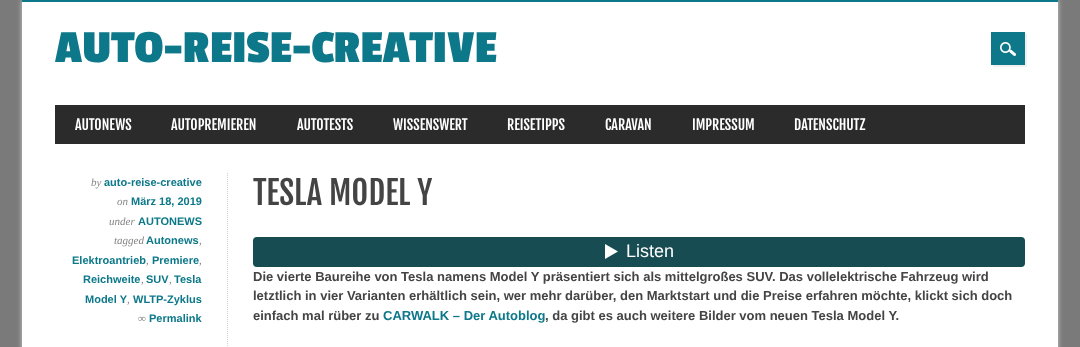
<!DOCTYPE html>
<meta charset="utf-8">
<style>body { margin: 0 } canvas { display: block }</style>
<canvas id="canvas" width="1080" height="347"></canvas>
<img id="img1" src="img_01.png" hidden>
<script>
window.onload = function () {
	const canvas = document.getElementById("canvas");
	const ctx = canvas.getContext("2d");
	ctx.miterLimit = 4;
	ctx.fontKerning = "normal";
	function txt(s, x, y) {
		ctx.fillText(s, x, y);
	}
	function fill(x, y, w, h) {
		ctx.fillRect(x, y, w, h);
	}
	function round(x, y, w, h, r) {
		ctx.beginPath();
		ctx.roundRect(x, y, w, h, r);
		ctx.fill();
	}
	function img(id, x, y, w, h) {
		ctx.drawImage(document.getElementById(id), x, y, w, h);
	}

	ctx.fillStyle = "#7A7A7A";
	fill(0, 0, 1080, 347);
	ctx.fillStyle = "#D0D0D0";
	ctx.filter = "blur(2.5px)";
	ctx.beginPath();
	ctx.rect(22, 0, 1036, 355);
	ctx.fill();
	ctx.filter = "none";
	ctx.fillStyle = "#FFFFFF";
	fill(22, 2, 1036, 345);
	ctx.fillStyle = "#0C7889";
	fill(22, 0, 1036, 2);
	ctx.fillStyle = "#F0F0F0";
	ctx.beginPath();
	ctx.moveTo(993, 65);
	ctx.lineTo(993, 67);
	ctx.lineTo(1027, 67);
	ctx.lineTo(1027, 34);
	ctx.lineTo(1025, 34);
	ctx.lineTo(1025, 65);
	ctx.closePath();
	ctx.fill();
	ctx.fillStyle = "#0C7889";
	fill(991, 32, 34, 33);
	img("img1", 1000, 42, 16, 14);
	ctx.fillStyle = "#2B2B2B";
	fill(55, 105, 970, 39);
	ctx.beginPath();
	ctx.moveTo(227.5, 173);
	ctx.lineTo(227.5, 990);
	ctx.strokeStyle = "#D2D2D2";
	ctx.setLineDash([1, 1]);
	ctx.stroke();
	ctx.fillStyle = "#184C53";
	round(253, 237, 772, 30, 4);
	ctx.fillStyle = "#FFFFFF";
	ctx.beginPath();
	ctx.moveTo(605, 244);
	ctx.lineTo(605, 259);
	ctx.lineTo(618, 251.5);
	ctx.closePath();
	ctx.fill();
	ctx.font = "bold 48px Passion One";
	ctx.fillStyle = "#0C7889";
	txt("AUTO-REISE-CREATIVE", 55, 62);
	ctx.font = "14px Fjalla One";
	ctx.fillStyle = "#FFFFFF";
	txt("AUTONEWS", 75, 130);
	txt("AUTOPREMIEREN", 171, 130);
	txt("AUTOTESTS", 297, 130);
	txt("WISSENSWERT", 393, 130);
	txt("REISETIPPS", 507, 130);
	txt("CARAVAN", 605, 130);
	txt("IMPRESSUM", 692, 130);
	txt("DATENSCHUTZ", 794, 130);
	ctx.font = "italic 11px Liberation Serif";
	ctx.fillStyle = "#858585";
	txt("by", 91, 186);
	ctx.font = "bold 11px Liberation Sans";
	ctx.fillStyle = "#0C7889";
	txt("auto-reise-creative", 104, 186);
	ctx.font = "italic 11px Liberation Serif";
	ctx.fillStyle = "#858585";
	txt("on", 117, 205);
	ctx.font = "bold 11px Liberation Sans";
	ctx.fillStyle = "#0C7889";
	txt("März 18, 2019", 131, 205);
	ctx.font = "italic 11px Liberation Serif";
	ctx.fillStyle = "#858585";
	txt("under", 109, 225);
	ctx.font = "bold 11px Liberation Sans";
	ctx.fillStyle = "#0C7889";
	txt("AUTONEWS", 138, 225);
	ctx.font = "italic 11px Liberation Serif";
	ctx.fillStyle = "#858585";
	txt("tagged", 114, 244);
	ctx.font = "bold 11px Liberation Sans";
	ctx.fillStyle = "#0C7889";
	txt("Autonews", 146, 244);
	ctx.font = "italic 11px Liberation Serif";
	ctx.fillStyle = "#858585";
	txt(",", 199, 244);
	ctx.font = "bold 11px Liberation Sans";
	ctx.fillStyle = "#0C7889";
	txt("Elektroantrieb", 72, 264);
	ctx.font = "italic 11px Liberation Serif";
	ctx.fillStyle = "#858585";
	txt(",", 146, 264);
	ctx.font = "bold 11px Liberation Sans";
	ctx.fillStyle = "#0C7889";
	txt("Premiere", 152, 264);
	ctx.font = "italic 11px Liberation Serif";
	ctx.fillStyle = "#858585";
	txt(",", 199, 264);
	ctx.font = "bold 11px Liberation Sans";
	ctx.fillStyle = "#0C7889";
	txt("Reichweite", 83, 283);
	ctx.font = "italic 11px Liberation Serif";
	ctx.fillStyle = "#858585";
	txt(",", 141, 283);
	ctx.font = "bold 11px Liberation Sans";
	ctx.fillStyle = "#0C7889";
	txt("SUV", 146, 283);
	ctx.font = "italic 11px Liberation Serif";
	ctx.fillStyle = "#858585";
	txt(",", 169, 283);
	ctx.font = "bold 11px Liberation Sans";
	ctx.fillStyle = "#0C7889";
	txt("Tesla", 174, 283);
	txt("Model Y", 85, 303);
	ctx.font = "italic 11px Liberation Serif";
	ctx.fillStyle = "#858585";
	txt(",", 127, 303);
	ctx.font = "bold 11px Liberation Sans";
	ctx.fillStyle = "#0C7889";
	txt("WLTP-Zyklus", 133, 303);
	ctx.font = "italic 11px Liberation Serif";
	ctx.fillStyle = "#858585";
	txt("∞", 138, 322);
	ctx.font = "bold 11px Liberation Sans";
	ctx.fillStyle = "#0C7889";
	txt("Permalink", 149, 322);
	ctx.font = "32.5px Fjalla One";
	ctx.fillStyle = "#444444";
	txt("TESLA MODEL Y", 253, 205);
	ctx.font = "18px Liberation Sans";
	ctx.fillStyle = "#FFFFFF";
	txt("Listen", 626, 257);
	ctx.font = "bold 13px Liberation Sans";
	ctx.fillStyle = "#444444";
	txt("Die vierte Baureihe von Tesla namens Model Y präsentiert sich als mittelgroßes SUV. Das vollelektrische Fahrzeug wird", 253, 281);
	txt("letztlich in vier Varianten erhältlich sein, wer mehr darüber, den Marktstart und die Preise erfahren möchte, klickt sich doch", 253, 300);
	txt("einfach mal rüber zu", 253, 320);
	ctx.fillStyle = "#0C7889";
	txt("CARWALK – Der Autoblog", 383, 320);
	ctx.fillStyle = "#444444";
	txt(", da gibt es auch weitere Bilder vom neuen Tesla Model Y.", 545, 320);
};
</script>
